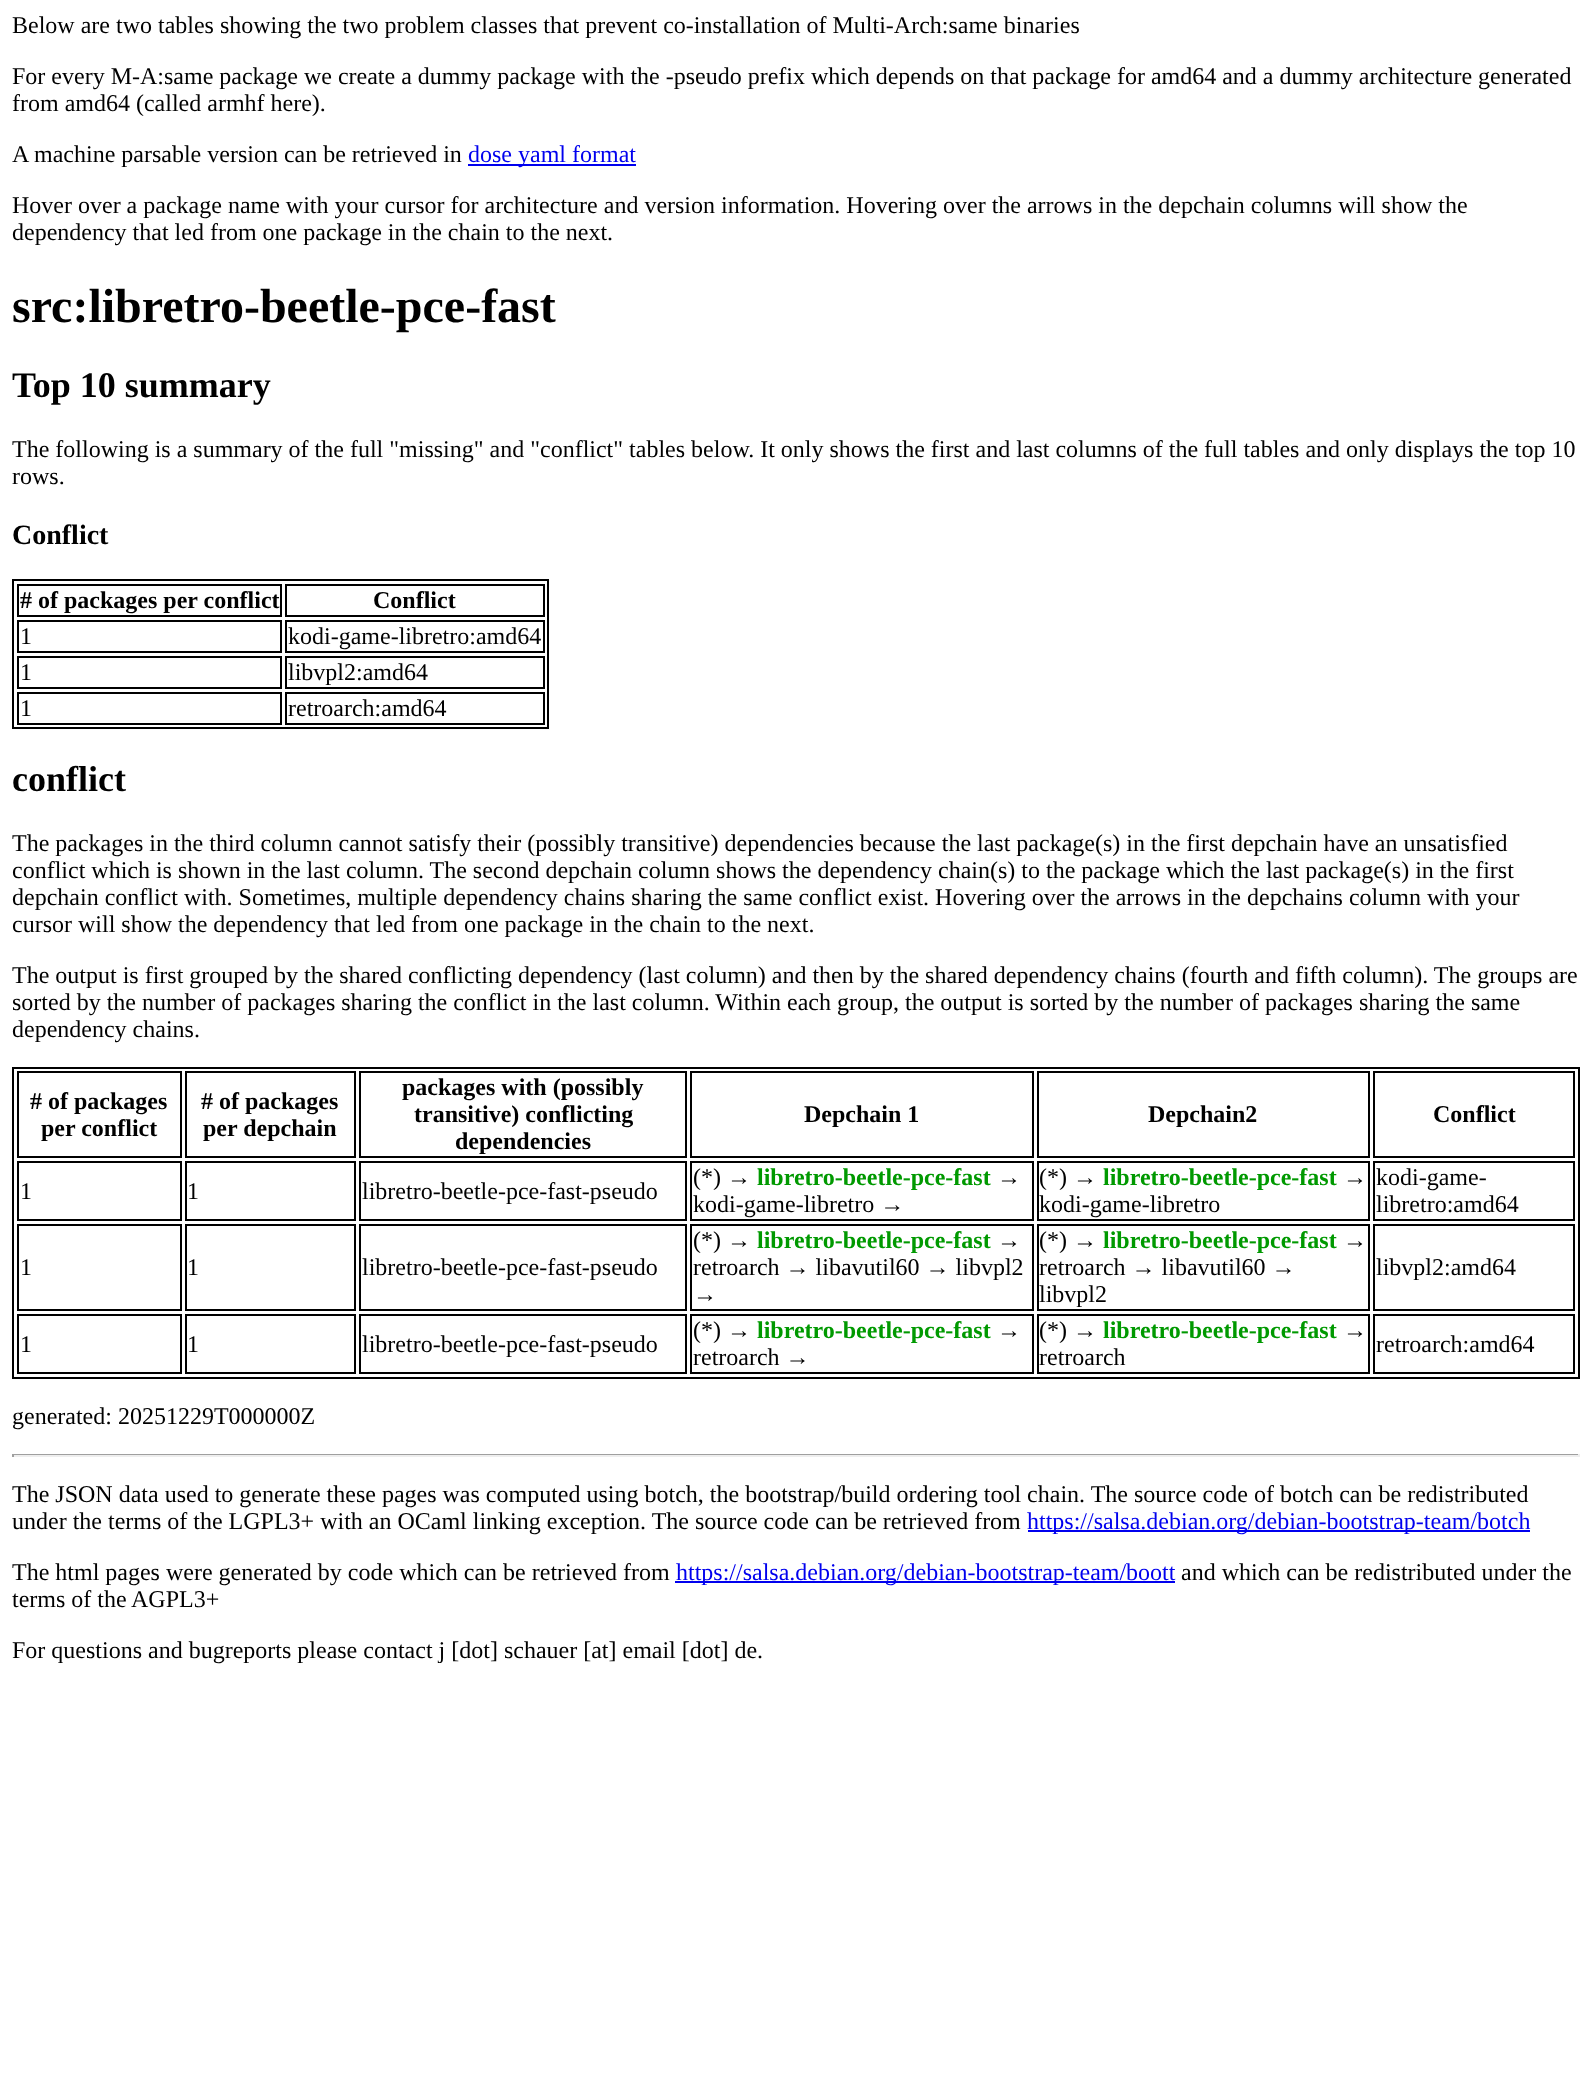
<!DOCTYPE html>
<meta charset="utf-8">
<style>body { margin: 0 } canvas { display: block }</style>
<canvas id="canvas" width="1591" height="2094"></canvas>
<script>
window.onload = function () {
	const canvas = document.getElementById("canvas");
	const ctx = canvas.getContext("2d");
	ctx.miterLimit = 4;
	ctx.fontKerning = "normal";
	function txt(s, x, y) {
		ctx.fillText(s, x, y);
	}
	function fill(x, y, w, h) {
		ctx.fillRect(x, y, w, h);
	}

	ctx.fillStyle = "#FFFFFF";
	fill(0, 0, 1591, 2094);
	ctx.fillStyle = "#0000EE";
	fill(468, 164, 168, 2);
	ctx.strokeStyle = "#000000";
	ctx.lineWidth = 2;
	ctx.strokeRect(13, 580, 535, 148);
	ctx.strokeRect(18, 585, 263, 31);
	ctx.strokeRect(286, 585, 258, 31);
	ctx.strokeRect(18, 621, 263, 31);
	ctx.strokeRect(286, 621, 258, 31);
	ctx.strokeRect(18, 657, 263, 31);
	ctx.strokeRect(286, 657, 258, 31);
	ctx.strokeRect(18, 693, 263, 31);
	ctx.strokeRect(286, 693, 258, 31);
	ctx.strokeRect(13, 1068, 1566, 310);
	ctx.strokeRect(18, 1072, 163, 85);
	ctx.strokeRect(186, 1072, 169, 85);
	ctx.strokeRect(360, 1072, 326, 85);
	ctx.strokeRect(691, 1072, 342, 85);
	ctx.strokeRect(1038, 1072, 331, 85);
	ctx.strokeRect(1374, 1072, 200, 85);
	ctx.strokeRect(18, 1162, 163, 58);
	ctx.strokeRect(186, 1162, 169, 58);
	ctx.strokeRect(360, 1162, 326, 58);
	ctx.strokeRect(691, 1162, 342, 58);
	ctx.strokeRect(1038, 1162, 331, 58);
	ctx.strokeRect(1374, 1162, 200, 58);
	ctx.strokeRect(18, 1225, 163, 85);
	ctx.strokeRect(186, 1225, 169, 85);
	ctx.strokeRect(360, 1225, 326, 85);
	ctx.strokeRect(691, 1225, 342, 85);
	ctx.strokeRect(1038, 1225, 331, 85);
	ctx.strokeRect(1374, 1225, 200, 85);
	ctx.strokeRect(18, 1315, 163, 58);
	ctx.strokeRect(186, 1315, 169, 58);
	ctx.strokeRect(360, 1315, 326, 58);
	ctx.strokeRect(691, 1315, 342, 58);
	ctx.strokeRect(1038, 1315, 331, 58);
	ctx.strokeRect(1374, 1315, 200, 58);
	ctx.fillStyle = "#9F9F9F";
	fill(12, 1454, 1568, 1);
	ctx.fillStyle = "#EEEEEE";
	fill(1578, 1454, 2, 3);
	fill(12, 1455, 1568, 2);
	ctx.fillStyle = "#9F9F9F";
	fill(12, 1454, 2, 3);
	ctx.fillStyle = "#0000EE";
	fill(1028, 1530, 502, 2);
	fill(675, 1581, 500, 2);
	ctx.font = "24px Liberation Serif";
	ctx.fillStyle = "#000000";
	txt("Below are two tables showing the two problem classes that prevent co-installation of Multi-Arch:same binaries", 12, 33);
	txt("For every M-A:same package we create a dummy package with the -pseudo prefix which depends on that package for amd64 and a dummy architecture generated", 12, 84);
	txt("from amd64 (called armhf here).", 12, 111);
	txt("A machine parsable version can be retrieved in", 12, 162);
	ctx.fillStyle = "#0000EE";
	txt("dose yaml format", 468, 162);
	ctx.fillStyle = "#000000";
	txt("Hover over a package name with your cursor for architecture and version information. Hovering over the arrows in the depchain columns will show the", 12, 213);
	txt("dependency that led from one package in the chain to the next.", 12, 240);
	ctx.font = "bold 48px Liberation Serif";
	txt("src:libretro-beetle-pce-fast", 12, 322);
	ctx.font = "bold 36px Liberation Serif";
	txt("Top 10 summary", 12, 397);
	ctx.font = "24px Liberation Serif";
	txt("The following is a summary of the full \"missing\" and \"conflict\" tables below. It only shows the first and last columns of the full tables and only displays the top 10", 12, 457);
	txt("rows.", 12, 484);
	ctx.font = "bold 28px Liberation Serif";
	txt("Conflict", 12, 544);
	ctx.font = "bold 24px Liberation Serif";
	txt("# of packages per conflict", 20, 608);
	txt("Conflict", 373, 608);
	ctx.font = "24px Liberation Serif";
	txt("1", 20, 644);
	txt("kodi-game-libretro:amd64", 288, 644);
	txt("1", 20, 680);
	txt("libvpl2:amd64", 288, 680);
	txt("1", 20, 716);
	txt("retroarch:amd64", 288, 716);
	ctx.font = "bold 36px Liberation Serif";
	txt("conflict", 12, 791);
	ctx.font = "24px Liberation Serif";
	txt("The packages in the third column cannot satisfy their (possibly transitive) dependencies because the last package(s) in the first depchain have an unsatisfied", 12, 851);
	txt("conflict which is shown in the last column. The second depchain column shows the dependency chain(s) to the package which the last package(s) in the first", 12, 878);
	txt("depchain conflict with. Sometimes, multiple dependency chains sharing the same conflict exist. Hovering over the arrows in the depchains column with your", 12, 905);
	txt("cursor will show the dependency that led from one package in the chain to the next.", 12, 932);
	txt("The output is first grouped by the shared conflicting dependency (last column) and then by the shared dependency chains (fourth and fifth column). The groups are", 12, 983);
	txt("sorted by the number of packages sharing the conflict in the last column. Within each group, the output is sorted by the number of packages sharing the same", 12, 1010);
	txt("dependency chains.", 12, 1037);
	ctx.font = "bold 24px Liberation Serif";
	txt("# of packages", 30, 1109);
	txt("per conflict", 41, 1136);
	txt("# of packages", 201, 1109);
	txt("per depchain", 203, 1136);
	txt("packages with (possibly", 402, 1095);
	txt("transitive) conflicting", 414, 1122);
	txt("dependencies", 455, 1149);
	txt("Depchain 1", 804, 1122);
	txt("Depchain2", 1148, 1122);
	txt("Conflict", 1433, 1122);
	ctx.font = "24px Liberation Serif";
	txt("1", 20, 1199);
	txt("1", 187, 1199);
	txt("libretro-beetle-pce-fast-pseudo", 362, 1199);
	txt("(*) →", 693, 1185);
	ctx.font = "bold 24px Liberation Serif";
	ctx.fillStyle = "#009900";
	txt("libretro-beetle-pce-fast", 757, 1185);
	ctx.font = "24px Liberation Serif";
	ctx.fillStyle = "#000000";
	txt("→", 997, 1185);
	txt("kodi-game-libretro →", 693, 1212);
	txt("(*) →", 1039, 1185);
	ctx.font = "bold 24px Liberation Serif";
	ctx.fillStyle = "#009900";
	txt("libretro-beetle-pce-fast", 1103, 1185);
	ctx.font = "24px Liberation Serif";
	ctx.fillStyle = "#000000";
	txt("→", 1343, 1185);
	txt("kodi-game-libretro", 1039, 1212);
	txt("kodi-game-", 1376, 1185);
	txt("libretro:amd64", 1376, 1212);
	txt("1", 20, 1275);
	txt("1", 187, 1275);
	txt("libretro-beetle-pce-fast-pseudo", 362, 1275);
	txt("(*) →", 693, 1248);
	ctx.font = "bold 24px Liberation Serif";
	ctx.fillStyle = "#009900";
	txt("libretro-beetle-pce-fast", 757, 1248);
	ctx.font = "24px Liberation Serif";
	ctx.fillStyle = "#000000";
	txt("→", 997, 1248);
	txt("retroarch → libavutil60 → libvpl2", 693, 1275);
	txt("→", 693, 1302);
	txt("(*) →", 1039, 1248);
	ctx.font = "bold 24px Liberation Serif";
	ctx.fillStyle = "#009900";
	txt("libretro-beetle-pce-fast", 1103, 1248);
	ctx.font = "24px Liberation Serif";
	ctx.fillStyle = "#000000";
	txt("→", 1343, 1248);
	txt("retroarch → libavutil60 →", 1039, 1275);
	txt("libvpl2", 1039, 1302);
	txt("libvpl2:amd64", 1376, 1275);
	txt("1", 20, 1352);
	txt("1", 187, 1352);
	txt("libretro-beetle-pce-fast-pseudo", 362, 1352);
	txt("(*) →", 693, 1338);
	ctx.font = "bold 24px Liberation Serif";
	ctx.fillStyle = "#009900";
	txt("libretro-beetle-pce-fast", 757, 1338);
	ctx.font = "24px Liberation Serif";
	ctx.fillStyle = "#000000";
	txt("→", 997, 1338);
	txt("retroarch →", 693, 1365);
	txt("(*) →", 1039, 1338);
	ctx.font = "bold 24px Liberation Serif";
	ctx.fillStyle = "#009900";
	txt("libretro-beetle-pce-fast", 1103, 1338);
	ctx.font = "24px Liberation Serif";
	ctx.fillStyle = "#000000";
	txt("→", 1343, 1338);
	txt("retroarch", 1039, 1365);
	txt("retroarch:amd64", 1376, 1352);
	txt("generated: 20251229T000000Z", 12, 1424);
	txt("The JSON data used to generate these pages was computed using botch, the bootstrap/build ordering tool chain. The source code of botch can be redistributed", 12, 1502);
	txt("under the terms of the LGPL3+ with an OCaml linking exception. The source code can be retrieved from", 12, 1529);
	ctx.fillStyle = "#0000EE";
	txt("https://salsa.debian.org/debian-bootstrap-team/botch", 1027, 1529);
	ctx.fillStyle = "#000000";
	txt("The html pages were generated by code which can be retrieved from", 12, 1580);
	ctx.fillStyle = "#0000EE";
	txt("https://salsa.debian.org/debian-bootstrap-team/boott", 676, 1580);
	ctx.fillStyle = "#000000";
	txt("and which can be redistributed under the", 1181, 1580);
	txt("terms of the", 12, 1607);
	txt("AGPL3+", 131, 1607);
	txt("For questions and bugreports please contact j [dot] schauer [at] email [dot] de.", 12, 1658);
};
</script>
